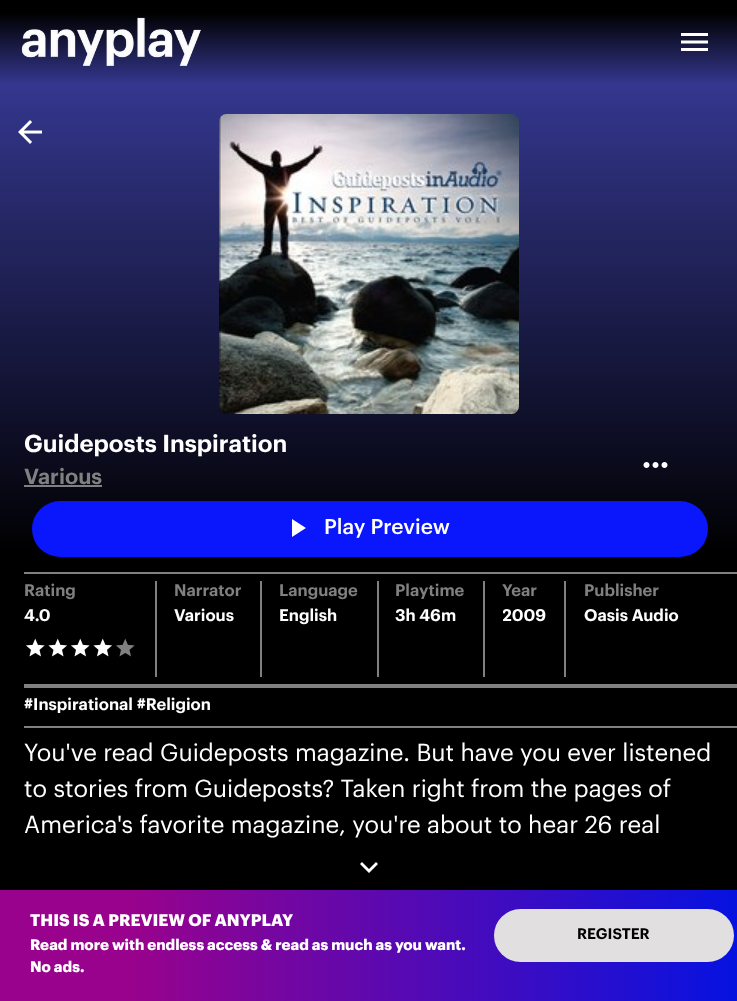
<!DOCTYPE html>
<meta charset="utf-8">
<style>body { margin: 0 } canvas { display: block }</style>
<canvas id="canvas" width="737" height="1001"></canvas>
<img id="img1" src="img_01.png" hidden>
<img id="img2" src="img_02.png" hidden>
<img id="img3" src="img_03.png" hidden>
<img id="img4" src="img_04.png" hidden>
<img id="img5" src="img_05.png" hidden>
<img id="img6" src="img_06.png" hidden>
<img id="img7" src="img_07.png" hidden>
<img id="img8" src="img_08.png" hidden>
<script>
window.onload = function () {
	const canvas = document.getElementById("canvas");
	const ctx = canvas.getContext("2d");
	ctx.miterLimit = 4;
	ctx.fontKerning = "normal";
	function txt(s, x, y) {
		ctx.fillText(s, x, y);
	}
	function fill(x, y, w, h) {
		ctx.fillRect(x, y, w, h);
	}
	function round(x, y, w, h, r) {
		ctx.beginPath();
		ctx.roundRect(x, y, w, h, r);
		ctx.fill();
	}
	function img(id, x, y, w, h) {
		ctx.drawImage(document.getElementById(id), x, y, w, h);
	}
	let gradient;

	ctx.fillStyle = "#000000";
	fill(0, 0, 737, 1001);
	gradient = ctx.createLinearGradient(369, 0, 369, 84);
	gradient.addColorStop(0.15, "#000000");
	gradient.addColorStop(1, "#34378E");
	ctx.fillStyle = gradient;
	fill(0, 14, 737, 70);
	img("img1", 21, 17, 180, 49);
	img("img2", 681, 33, 27, 18);
	gradient = ctx.createLinearGradient(369, 557, 369, 84);
	gradient.addColorStop(0, "#000000");
	gradient.addColorStop(1, "#34378E");
	ctx.fillStyle = gradient;
	fill(0, 84, 737, 465);
	img("img3", 18, 120, 24, 24);
	img("img4", 219, 114, 300, 300);
	ctx.fillStyle = "#808080";
	fill(24, 485, 78, 2);
	img("img5", 643, 462, 25, 6);
	ctx.fillStyle = "#0A16FC";
	round(32, 501, 676, 56, 28);
	ctx.fillStyle = "#FFFFFF";
	ctx.beginPath();
	ctx.moveTo(292, 519);
	ctx.lineTo(292, 537);
	ctx.lineTo(306, 528);
	ctx.closePath();
	ctx.fill();
	ctx.fillStyle = "#808080";
	fill(24, 572, 713, 2);
	fill(24, 684, 713, 4);
	img("img6", 26, 638, 19, 19);
	img("img7", 48, 638, 19, 19);
	img("img6", 71, 638, 19, 19);
	img("img7", 93, 638, 19, 19);
	img("img8", 116, 638, 19, 19);
	fill(155, 581, 2, 96);
	fill(260, 581, 2, 96);
	fill(377, 581, 2, 96);
	fill(483, 581, 2, 96);
	fill(564, 581, 2, 96);
	fill(24, 726, 713, 2);
	ctx.fillStyle = "#FFFFFF";
	ctx.beginPath();
	ctx.moveTo(376, 862);
	ctx.lineTo(369, 869);
	ctx.lineTo(362, 862);
	ctx.lineTo(360, 864);
	ctx.lineTo(369, 873);
	ctx.lineTo(378, 864);
	ctx.closePath();
	ctx.fill();
	gradient = ctx.createLinearGradient(-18, 955, 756, 955);
	gradient.addColorStop(0.19, "#99028C");
	gradient.addColorStop(0.97, "#0712E0");
	ctx.fillStyle = gradient;
	fill(0, 890, 737, 111);
	ctx.fillStyle = "#E1DFDF";
	round(494, 909, 240, 53, 26.5);
	ctx.font = "600 24px Graphik";
	ctx.fillStyle = "#FFFFFF";
	txt("Guideposts Inspiration", 24, 452);
	ctx.font = "600 21.5px Graphik";
	ctx.fillStyle = "#808080";
	txt("Various", 24, 484);
	ctx.font = "500 21px Graphik";
	ctx.fillStyle = "#FFFFFF";
	txt("Play Preview", 324, 534);
	ctx.font = "600 16.5px Graphik";
	ctx.fillStyle = "#808080";
	txt("Rating", 24, 596);
	ctx.fillStyle = "#FFFFFF";
	txt("4.0", 24, 621);
	ctx.fillStyle = "#808080";
	txt("Narrator", 174, 596);
	ctx.fillStyle = "#FFFFFF";
	txt("Various", 174, 621);
	ctx.fillStyle = "#808080";
	txt("Language", 279, 596);
	ctx.fillStyle = "#FFFFFF";
	txt("English", 279, 621);
	ctx.fillStyle = "#808080";
	txt("Playtime", 395, 596);
	ctx.fillStyle = "#FFFFFF";
	txt("3h 46m", 395, 621);
	ctx.fillStyle = "#808080";
	txt("Year", 502, 596);
	ctx.save();
	ctx.beginPath();
	ctx.rect(503, 605, 43, 25);
	ctx.clip();
	ctx.fillStyle = "#FFFFFF";
	txt("2009", 502, 621);
	ctx.restore();
	txt("Publisher", 584, 596);
	ctx.fillStyle = "#FFFFFF";
	txt("Oasis Audio", 584, 621);
	txt("#Inspirational #Religion", 24, 710);
	ctx.font = "24px Graphik";
	txt("You've read Guideposts magazine. But have you ever listened", 24, 761);
	txt("to stories from Guideposts? Taken right from the pages of", 24, 797);
	txt("America's favorite magazine, you're about to hear 26 real", 24, 833);
	ctx.font = "bold 16.5px Graphik";
	txt("THIS IS A PREVIEW OF ANYPLAY", 30, 926);
	ctx.font = "bold 15px Graphik";
	txt("Read more with endless access & read as much as you want.", 30, 950);
	txt("No ads.", 30, 972);
	ctx.font = "600 15px Graphik";
	ctx.fillStyle = "#000000";
	txt("REGISTER", 577, 939);
};
</script>
